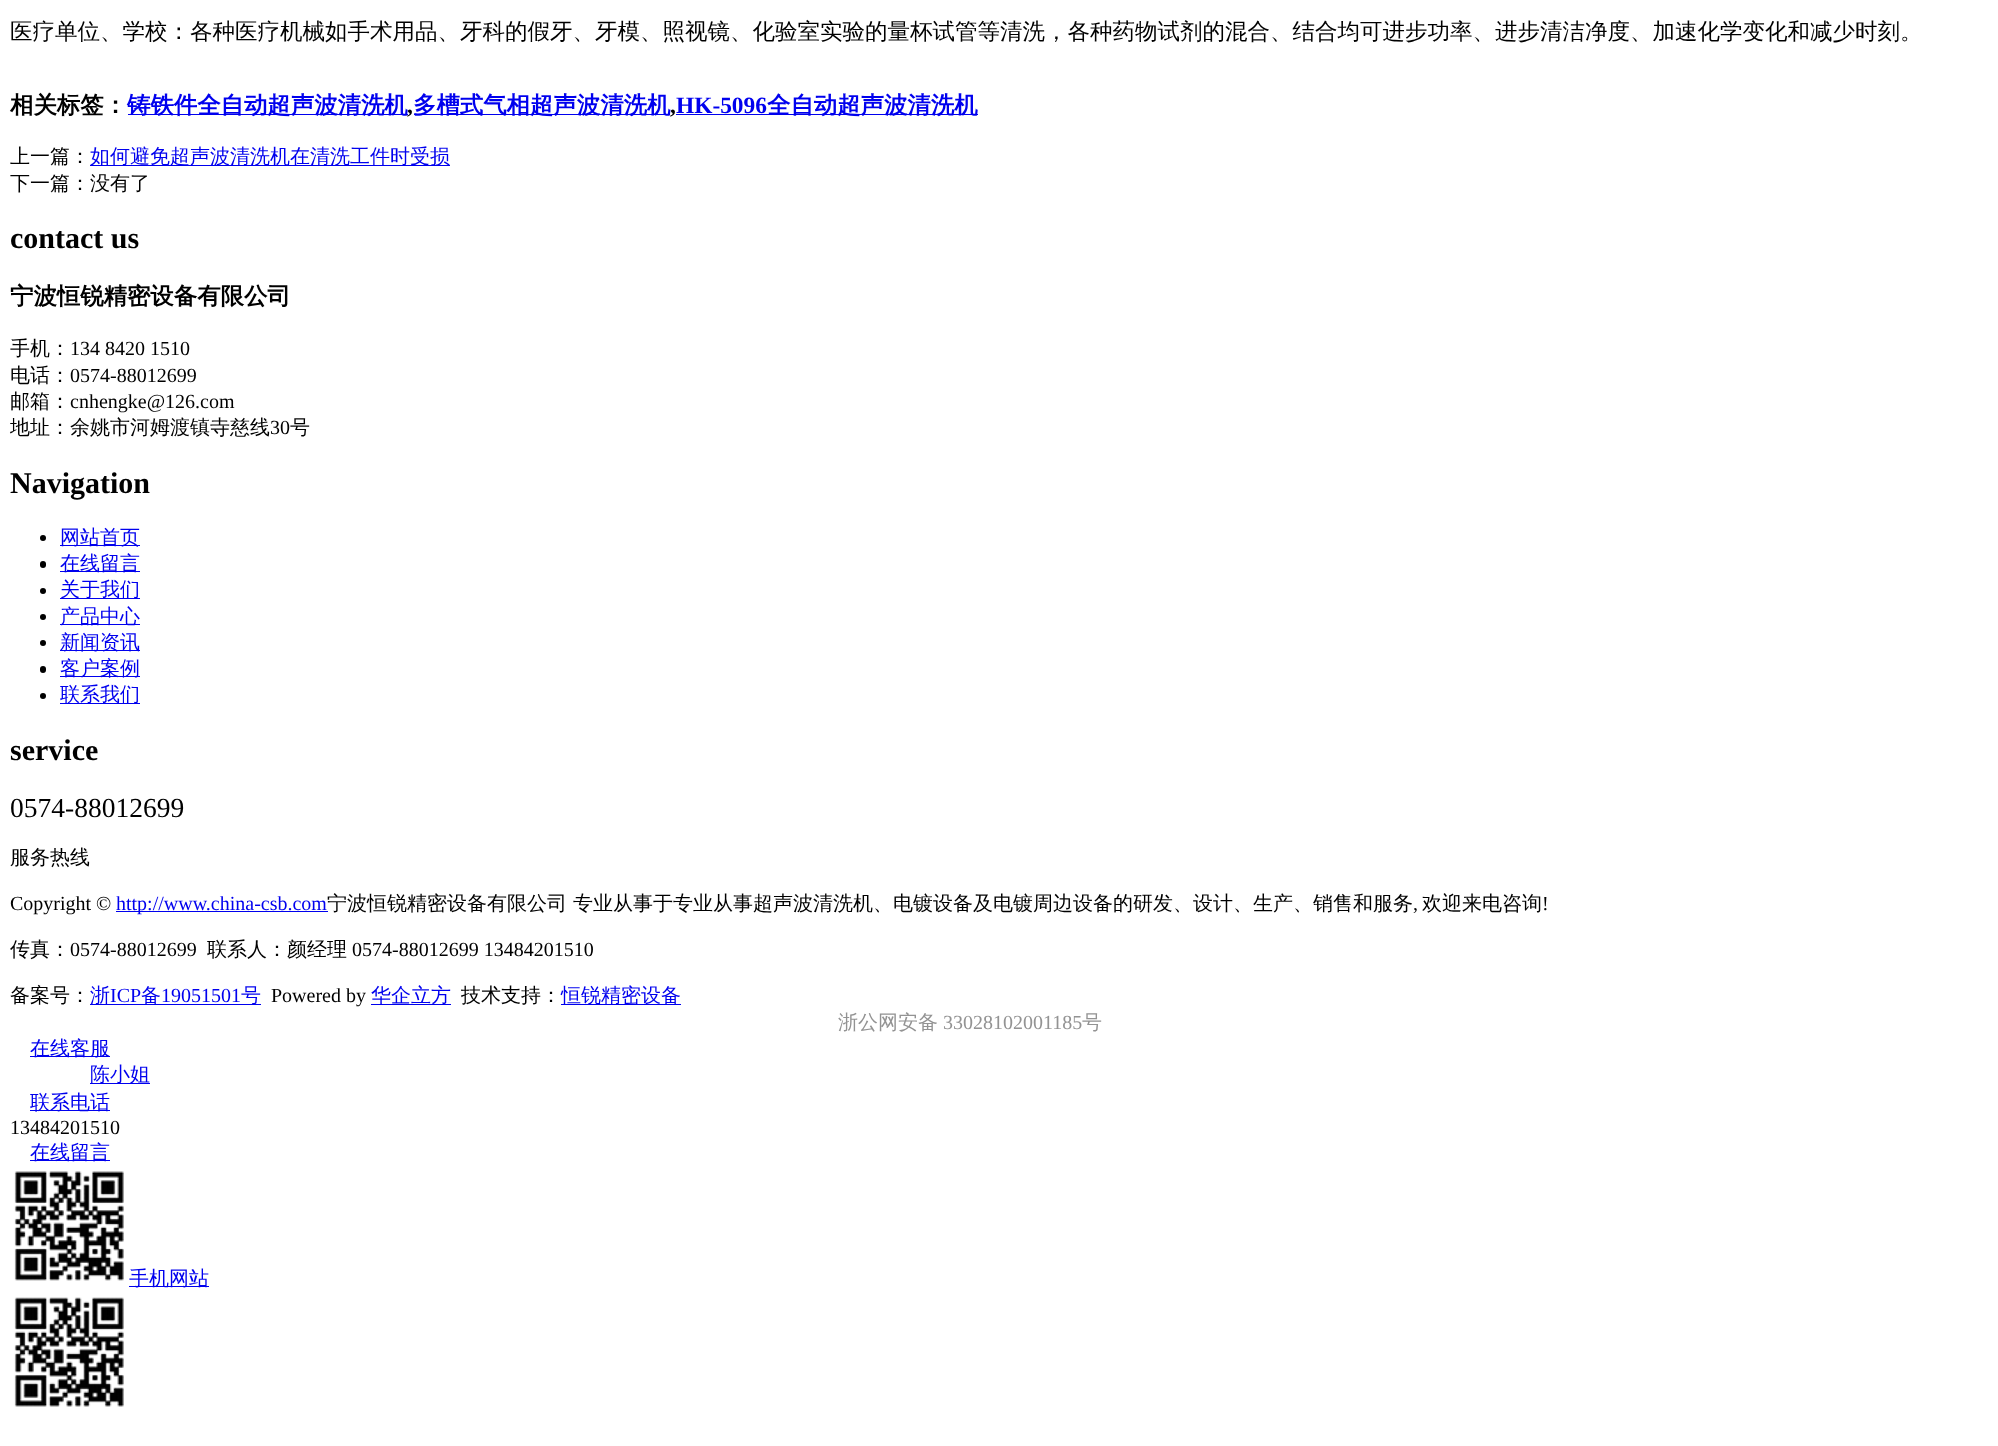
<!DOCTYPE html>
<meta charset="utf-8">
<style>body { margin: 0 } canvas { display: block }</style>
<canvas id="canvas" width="1998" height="1446"></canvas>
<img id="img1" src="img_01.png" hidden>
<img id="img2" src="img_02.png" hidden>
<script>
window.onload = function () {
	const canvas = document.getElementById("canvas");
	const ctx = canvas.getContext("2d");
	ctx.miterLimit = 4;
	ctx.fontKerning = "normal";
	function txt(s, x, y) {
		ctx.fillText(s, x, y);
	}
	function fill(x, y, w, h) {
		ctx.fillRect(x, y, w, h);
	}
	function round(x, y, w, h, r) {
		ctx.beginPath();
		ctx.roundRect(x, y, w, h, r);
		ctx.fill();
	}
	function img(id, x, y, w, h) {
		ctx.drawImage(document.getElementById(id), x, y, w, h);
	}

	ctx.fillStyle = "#FFFFFF";
	fill(0, 0, 1998, 1446);
	ctx.fillStyle = "#0000EE";
	fill(128, 114, 280, 1);
	fill(414, 114, 256, 1);
	fill(676, 114, 302, 1);
	fill(90, 165, 360, 1);
	ctx.fillStyle = "#000000";
	ctx.beginPath();
	ctx.arc(43, 538, 3, 0, Math.PI * 2);
	ctx.fill();
	ctx.fillStyle = "#0000EE";
	fill(60, 545, 80, 1);
	ctx.fillStyle = "#000000";
	round(40, 561, 6, 7, 3);
	ctx.fillStyle = "#0000EE";
	fill(60, 571, 80, 1);
	ctx.fillStyle = "#000000";
	ctx.beginPath();
	ctx.arc(43, 591, 3, 0, Math.PI * 2);
	ctx.fill();
	ctx.fillStyle = "#0000EE";
	fill(60, 598, 80, 1);
	ctx.fillStyle = "#000000";
	ctx.beginPath();
	ctx.arc(43, 617, 3, 0, Math.PI * 2);
	ctx.fill();
	ctx.fillStyle = "#0000EE";
	fill(60, 624, 80, 1);
	ctx.fillStyle = "#000000";
	ctx.beginPath();
	ctx.arc(43, 643, 3, 0, Math.PI * 2);
	ctx.fill();
	ctx.fillStyle = "#0000EE";
	fill(60, 650, 80, 1);
	ctx.fillStyle = "#000000";
	round(40, 666, 6, 7, 3);
	ctx.fillStyle = "#0000EE";
	fill(60, 676, 80, 1);
	ctx.fillStyle = "#000000";
	ctx.beginPath();
	ctx.arc(43, 696, 3, 0, Math.PI * 2);
	ctx.fill();
	ctx.fillStyle = "#0000EE";
	fill(60, 703, 80, 1);
	fill(116, 911, 212, 1);
	fill(90, 1004, 171, 1);
	fill(371, 1004, 80, 1);
	fill(561, 1004, 120, 1);
	fill(30, 1056, 80, 1);
	fill(90, 1083, 60, 1);
	fill(30, 1110, 80, 1);
	fill(30, 1160, 80, 1);
	img("img1", 14, 1171, 110, 110);
	fill(129, 1286, 80, 1);
	img("img2", 14, 1297, 110, 110);
	ctx.font = "500 22.5px WenQuanYi Zen Hei";
	ctx.fillStyle = "#000000";
	txt("医疗单位、学校：各种医疗机械如手术用品、牙科的假牙、牙模、照视镜、化验室实验的量杯试管等清洗，各种药物试剂的混合、结合均可进步功率、进步清洁净度、加速化学变化和减少时刻。", 10, 39);
	ctx.font = "bold 23.4px WenQuanYi Zen Hei";
	txt("相关标签：", 10, 113);
	ctx.fillStyle = "#0000EE";
	txt("铸铁件全自动超声波清洗机", 127, 113);
	ctx.font = "bold 23.4px Liberation Serif";
	ctx.fillStyle = "#000000";
	txt(",", 407, 113);
	ctx.font = "bold 23.4px WenQuanYi Zen Hei";
	ctx.fillStyle = "#0000EE";
	txt("多槽式气相超声波清洗机", 413, 113);
	ctx.font = "bold 23.4px Liberation Serif";
	ctx.fillStyle = "#000000";
	txt(",", 670, 113);
	ctx.fillStyle = "#0000EE";
	txt("HK-5096", 676, 113);
	ctx.font = "bold 23.4px WenQuanYi Zen Hei";
	txt("全自动超声波清洗机", 767, 113);
	ctx.font = "500 20px WenQuanYi Zen Hei";
	ctx.fillStyle = "#000000";
	txt("上一篇：", 10, 163);
	ctx.fillStyle = "#0000EE";
	txt("如何避免超声波清洗机在清洗工件时受损", 90, 163);
	ctx.fillStyle = "#000000";
	txt("下一篇：没有了", 10, 190);
	ctx.font = "bold 30px Liberation Serif";
	txt("contact us", 10, 248);
	ctx.font = "bold 23.4px WenQuanYi Zen Hei";
	txt("宁波恒锐精密设备有限公司", 10, 304);
	ctx.font = "500 20px WenQuanYi Zen Hei";
	txt("手机：", 10, 355);
	ctx.font = "20px Liberation Serif";
	txt("134 8420 1510", 70, 355);
	ctx.font = "500 20px WenQuanYi Zen Hei";
	txt("电话：", 10, 382);
	ctx.font = "20px Liberation Serif";
	txt("0574-88012699", 70, 382);
	ctx.font = "500 20px WenQuanYi Zen Hei";
	txt("邮箱：", 10, 408);
	ctx.font = "20px Liberation Serif";
	txt("cnhengke@126.com", 70, 408);
	ctx.font = "500 20px WenQuanYi Zen Hei";
	txt("地址：余姚市河姆渡镇寺慈线", 10, 434);
	ctx.font = "20px Liberation Serif";
	txt("30", 270, 434);
	ctx.font = "500 20px WenQuanYi Zen Hei";
	txt("号", 290, 434);
	ctx.font = "bold 30px Liberation Serif";
	txt("Navigation", 10, 493);
	ctx.font = "500 20px WenQuanYi Zen Hei";
	ctx.fillStyle = "#0000EE";
	txt("网站首页", 60, 544);
	txt("在线留言", 60, 570);
	txt("关于我们", 60, 596);
	txt("产品中心", 60, 623);
	txt("新闻资讯", 60, 649);
	txt("客户案例", 60, 675);
	txt("联系我们", 60, 701);
	ctx.font = "bold 30px Liberation Serif";
	ctx.fillStyle = "#000000";
	txt("service", 10, 760);
	ctx.font = "27.5px Liberation Serif";
	txt("0574-88012699", 10, 817);
	ctx.font = "500 20px WenQuanYi Zen Hei";
	txt("服务热线", 10, 864);
	ctx.font = "20px Liberation Serif";
	txt("Copyright ©", 10, 910);
	ctx.fillStyle = "#0000EE";
	txt("http://www.china-csb.com", 116, 910);
	ctx.font = "500 20px WenQuanYi Zen Hei";
	ctx.fillStyle = "#000000";
	txt("宁波恒锐精密设备有限公司 专业从事于专业从事超声波清洗机、电镀设备及电镀周边设备的研发、设计、生产、销售和服务", 327, 910);
	ctx.font = "20px Liberation Serif";
	txt(",", 1413, 910);
	ctx.font = "500 20px WenQuanYi Zen Hei";
	txt("欢迎来电咨询", 1422, 910);
	ctx.font = "20px Liberation Serif";
	txt("!", 1542, 910);
	ctx.font = "500 20px WenQuanYi Zen Hei";
	txt("传真：", 10, 956);
	ctx.font = "20px Liberation Serif";
	txt("0574-88012699", 70, 956);
	ctx.font = "500 20px WenQuanYi Zen Hei";
	txt("联系人：颜经理", 207, 956);
	ctx.font = "20px Liberation Serif";
	txt("0574-88012699 13484201510", 352, 956);
	ctx.font = "500 20px WenQuanYi Zen Hei";
	txt("备案号：", 10, 1002);
	ctx.fillStyle = "#0000EE";
	txt("浙", 90, 1002);
	ctx.font = "20px Liberation Serif";
	txt("ICP", 110, 1002);
	ctx.font = "500 20px WenQuanYi Zen Hei";
	txt("备", 141, 1002);
	ctx.font = "20px Liberation Serif";
	txt("19051501", 161, 1002);
	ctx.font = "500 20px WenQuanYi Zen Hei";
	txt("号", 241, 1002);
	ctx.font = "20px Liberation Serif";
	ctx.fillStyle = "#000000";
	txt("Powered by", 271, 1002);
	ctx.font = "500 20px WenQuanYi Zen Hei";
	ctx.fillStyle = "#0000EE";
	txt("华企立方", 371, 1002);
	ctx.fillStyle = "#000000";
	txt("技术支持：", 461, 1002);
	ctx.fillStyle = "#0000EE";
	txt("恒锐精密设备", 561, 1002);
	ctx.fillStyle = "#939393";
	txt("浙公网安备", 838, 1029);
	ctx.font = "20px Liberation Serif";
	txt("33028102001185", 943, 1029);
	ctx.font = "500 20px WenQuanYi Zen Hei";
	txt("号", 1082, 1029);
	ctx.fillStyle = "#0000EE";
	txt("在线客服", 30, 1055);
	txt("陈小姐", 90, 1081);
	txt("联系电话", 30, 1109);
	ctx.font = "20px Liberation Serif";
	ctx.fillStyle = "#000000";
	txt("13484201510", 10, 1134);
	ctx.font = "500 20px WenQuanYi Zen Hei";
	ctx.fillStyle = "#0000EE";
	txt("在线留言", 30, 1159);
	txt("手机网站", 129, 1285);
};
</script>
